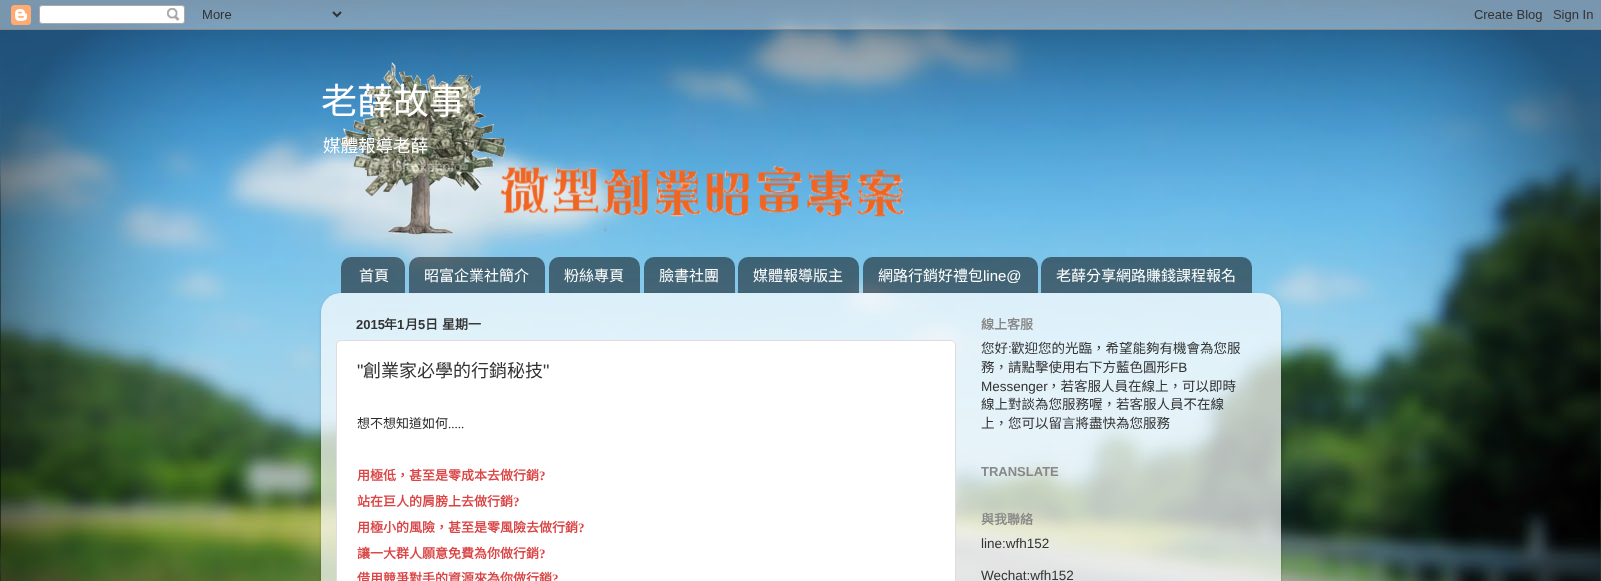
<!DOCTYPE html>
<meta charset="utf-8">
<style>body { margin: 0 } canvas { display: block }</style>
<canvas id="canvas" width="1601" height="581"></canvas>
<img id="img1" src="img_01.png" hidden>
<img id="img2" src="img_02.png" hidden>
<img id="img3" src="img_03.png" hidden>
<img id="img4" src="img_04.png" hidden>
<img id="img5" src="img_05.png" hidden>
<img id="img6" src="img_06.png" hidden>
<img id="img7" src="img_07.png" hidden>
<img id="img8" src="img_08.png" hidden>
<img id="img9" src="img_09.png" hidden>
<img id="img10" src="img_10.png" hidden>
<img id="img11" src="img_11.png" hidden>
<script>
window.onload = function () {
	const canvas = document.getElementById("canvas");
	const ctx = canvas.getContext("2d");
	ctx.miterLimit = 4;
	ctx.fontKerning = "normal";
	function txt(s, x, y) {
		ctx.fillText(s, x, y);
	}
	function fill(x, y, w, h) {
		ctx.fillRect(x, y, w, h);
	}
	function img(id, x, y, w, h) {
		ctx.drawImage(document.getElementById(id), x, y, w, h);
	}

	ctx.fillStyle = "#FFFFFF";
	fill(0, 0, 1601, 581);
	img("img1", 0, 0, 1601, 581);
	img("img2", 0, 0, 1601, 30);
	img("img3", 339, 62, 566, 173);
	img("img4", 341, 257, 64, 36);
	img("img5", 409, 257, 136, 36);
	img("img6", 549, 257, 91, 36);
	img("img7", 644, 257, 91, 36);
	img("img8", 738, 257, 121, 36);
	img("img9", 863, 257, 175, 36);
	img("img10", 1041, 257, 211, 36);
	ctx.save();
	ctx.beginPath();
	ctx.moveTo(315, 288);
	ctx.lineTo(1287, 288);
	ctx.lineTo(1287, 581);
	ctx.lineTo(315, 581);
	ctx.closePath();
	ctx.moveTo(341, 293);
	ctx.lineTo(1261, 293);
	ctx.bezierCurveTo(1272, 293, 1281, 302, 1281, 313);
	ctx.lineTo(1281, 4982);
	ctx.lineTo(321, 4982);
	ctx.lineTo(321, 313);
	ctx.bezierCurveTo(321, 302, 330, 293, 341, 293);
	ctx.closePath();
	ctx.clip("evenodd");
	ctx.fillStyle = "rgba(0, 0, 0, 0.15)";
	ctx.filter = "blur(1.5px)";
	ctx.beginPath();
	ctx.roundRect(321, 294, 960, 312, 20);
	ctx.fill();
	ctx.filter = "none";
	ctx.restore();
	img("img11", 321, 293, 960, 288);
	ctx.beginPath();
	ctx.roundRect(336.5, 340.5, 619, 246, 4.5);
	ctx.fill();
	ctx.strokeStyle = "#DDDDDD";
	ctx.stroke();
	ctx.font = "36px Noto Sans CJK TC";
	txt("老薛故事", 321, 114);
	ctx.font = "17.5px Noto Sans CJK TC";
	txt("媒體報導老薛", 323, 152);
	ctx.font = "15px Noto Sans CJK TC";
	txt("首頁", 359, 281);
	txt("昭富企業社簡介", 424, 281);
	txt("粉絲專頁", 564, 281);
	txt("臉書社團", 659, 281);
	txt("媒體報導版主", 753, 281);
	txt("網路行銷好禮包", 878, 281);
	ctx.font = "15px Liberation Sans";
	txt("line@", 983, 281);
	ctx.font = "15px Noto Sans CJK TC";
	txt("老薛分享網路賺錢課程報名", 1056, 281);
	ctx.font = "bold 13px Liberation Sans";
	ctx.fillStyle = "#333333";
	txt("2015", 356, 329);
	ctx.font = "bold 13px Noto Sans CJK TC";
	txt("年", 384, 329);
	ctx.font = "bold 13px Liberation Sans";
	txt("1", 397, 329);
	ctx.font = "bold 13px Noto Sans CJK TC";
	txt("月", 405, 329);
	ctx.font = "bold 13px Liberation Sans";
	txt("5", 418, 329);
	ctx.wordSpacing = "1px";
	ctx.font = "bold 13px Noto Sans CJK TC";
	txt("日 星期一", 425, 329);
	ctx.wordSpacing = "0px";
	ctx.font = "18px Liberation Sans";
	txt("\"", 357, 377);
	ctx.font = "18px Noto Sans CJK TC";
	txt("創業家必學的行銷秘技", 363, 377);
	ctx.font = "18px Liberation Sans";
	txt("\"", 543, 377);
	ctx.font = "13px Noto Sans CJK TC";
	ctx.fillStyle = "#2A2A2A";
	txt("想不想知道如何", 357, 428);
	ctx.font = "13px Liberation Serif";
	txt(".....", 448, 428);
	ctx.font = "bold 13px Noto Sans CJK TC";
	ctx.fillStyle = "#DA4444";
	txt("用極低，甚至是零成本去做行銷", 357, 480);
	ctx.font = "bold 13px Liberation Serif";
	txt("?", 539, 480);
	ctx.font = "bold 13px Noto Sans CJK TC";
	txt("站在巨人的肩膀上去做行銷", 357, 506);
	ctx.font = "bold 13px Liberation Serif";
	txt("?", 513, 506);
	ctx.font = "bold 13px Noto Sans CJK TC";
	txt("用極小的風險，甚至是零風險去做行銷", 357, 532);
	ctx.font = "bold 13px Liberation Serif";
	txt("?", 578, 532);
	ctx.font = "bold 13px Noto Sans CJK TC";
	txt("讓一大群人願意免費為你做行銷", 357, 558);
	ctx.font = "bold 13px Liberation Serif";
	txt("?", 539, 558);
	ctx.font = "bold 13px Noto Sans CJK TC";
	txt("借用競爭對手的資源來為你做行銷", 357, 583);
	ctx.font = "bold 13px Liberation Serif";
	txt("?", 552, 583);
	ctx.font = "bold 13px Noto Sans CJK TC";
	ctx.fillStyle = "#888888";
	txt("線上客服", 981, 329);
	ctx.font = "13.5px Noto Sans CJK TC";
	ctx.fillStyle = "#333333";
	txt("您好", 981, 353);
	ctx.font = "13.5px Liberation Sans";
	txt(":", 1008, 353);
	ctx.font = "13.5px Noto Sans CJK TC";
	txt("歡迎您的光臨，希望能夠有機會為您服", 1011, 353);
	txt("務，請點擊使用右下方藍色圓形", 981, 372);
	ctx.font = "13.5px Liberation Sans";
	txt("FB", 1170, 372);
	txt("Messenger", 981, 391);
	ctx.font = "13.5px Noto Sans CJK TC";
	txt("，若客服人員在線上，可以即時", 1047, 391);
	txt("線上對談為您服務喔，若客服人員不在線", 981, 409);
	txt("上，您可以留言將盡快為您服務", 981, 428);
	ctx.font = "bold 13px Liberation Sans";
	ctx.fillStyle = "#888888";
	txt("TRANSLATE", 981, 476);
	ctx.font = "bold 13px Noto Sans CJK TC";
	txt("與我聯絡", 981, 524);
	ctx.font = "13.5px Liberation Sans";
	ctx.fillStyle = "#333333";
	txt("line:wfh152", 981, 548);
	txt("Wechat:wfh152", 981, 580);
};
</script>
